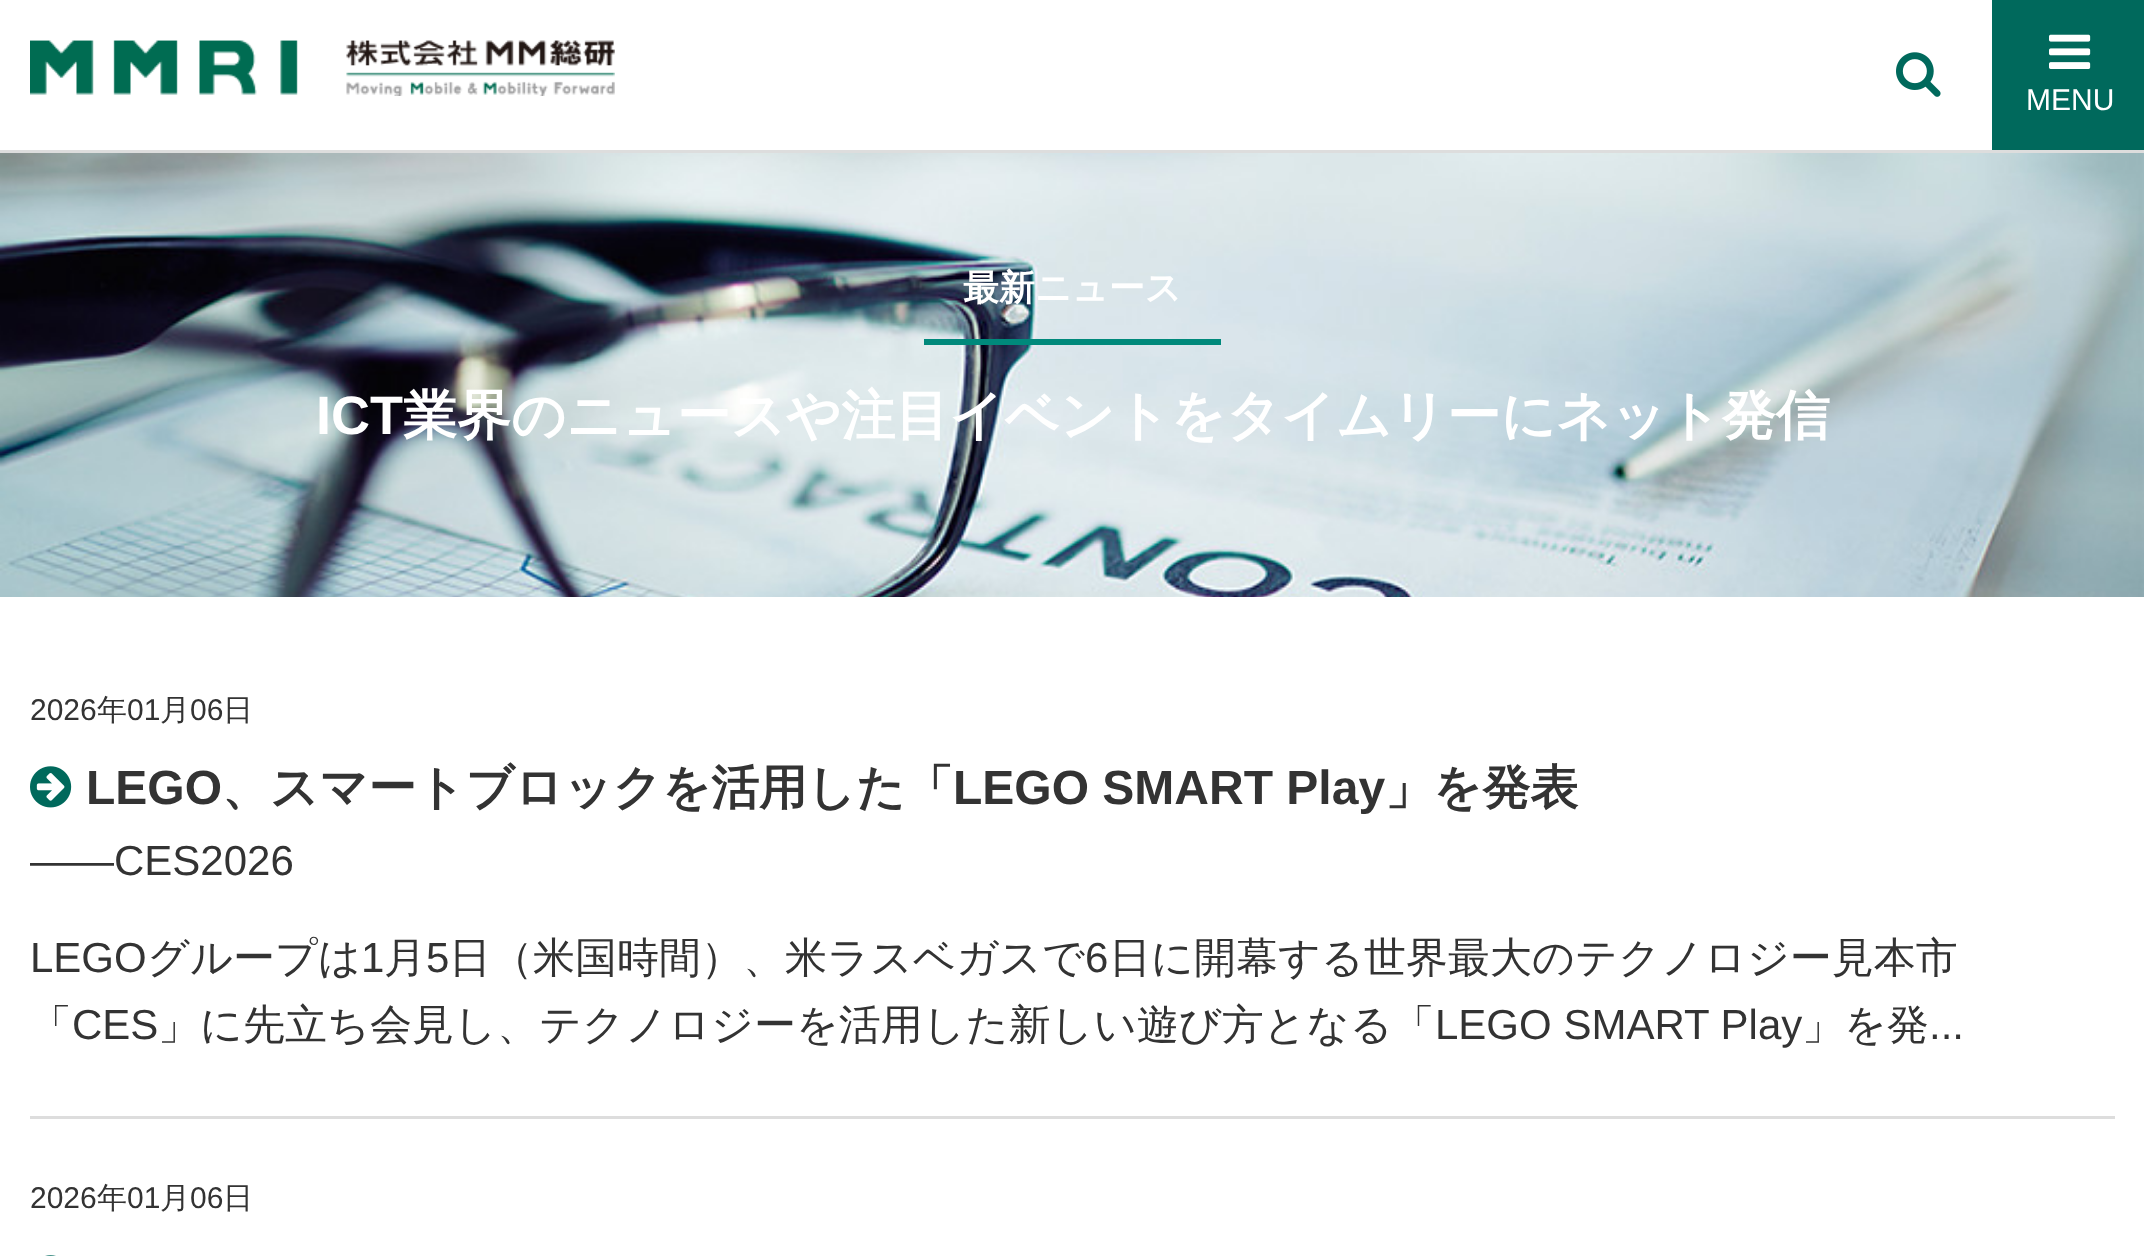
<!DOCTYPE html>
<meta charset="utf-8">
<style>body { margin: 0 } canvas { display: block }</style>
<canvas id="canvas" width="2144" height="1256"></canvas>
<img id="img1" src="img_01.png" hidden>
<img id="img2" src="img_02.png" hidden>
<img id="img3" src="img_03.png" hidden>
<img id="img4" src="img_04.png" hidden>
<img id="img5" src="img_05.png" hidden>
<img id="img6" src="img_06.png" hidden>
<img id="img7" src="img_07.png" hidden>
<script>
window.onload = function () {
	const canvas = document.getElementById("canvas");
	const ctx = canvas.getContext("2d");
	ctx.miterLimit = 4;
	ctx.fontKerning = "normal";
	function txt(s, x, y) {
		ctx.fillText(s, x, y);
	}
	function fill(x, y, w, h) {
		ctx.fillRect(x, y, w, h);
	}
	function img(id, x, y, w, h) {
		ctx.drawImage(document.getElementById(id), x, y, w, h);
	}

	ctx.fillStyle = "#FFFFFF";
	fill(0, 0, 2144, 1256);
	ctx.fillStyle = "#DDDDDD";
	fill(0, 150, 2144, 3);
	img("img1", 30, 40, 268, 55);
	img("img2", 346, 40, 269, 56);
	img("img3", 1896, 52, 45, 45);
	ctx.fillStyle = "#00695C";
	fill(1992, 0, 152, 150);
	img("img4", 2049, 34, 42, 35);
	img("img5", 0, 153, 2144, 444);
	ctx.fillStyle = "#00897B";
	fill(924, 339, 297, 6);
	ctx.fillStyle = "#DDDDDD";
	fill(30, 1116, 2085, 3);
	img("img6", 30, 766, 42, 42);
	img("img7", 45, 1255, 11, 1);
	ctx.font = "30px Liberation Sans";
	ctx.fillStyle = "#FFFFFF";
	txt("MENU", 2026, 110);
	ctx.font = "bold 36px WenQuanYi Zen Hei";
	txt("最新ニュース", 963, 300);
	ctx.font = "bold 54px Liberation Sans";
	txt("ICT", 316, 434);
	ctx.font = "bold 54px WenQuanYi Zen Hei";
	txt("業界のニュースや注目イベントをタイムリーにネット発信", 403, 434);
	ctx.font = "30px Liberation Sans";
	ctx.fillStyle = "#333333";
	txt("2026", 30, 720);
	ctx.font = "500 30px WenQuanYi Zen Hei";
	txt("年", 97, 720);
	ctx.font = "30px Liberation Sans";
	txt("01", 127, 720);
	ctx.font = "500 30px WenQuanYi Zen Hei";
	txt("月", 160, 720);
	ctx.font = "30px Liberation Sans";
	txt("06", 190, 720);
	ctx.font = "500 30px WenQuanYi Zen Hei";
	txt("日", 223, 720);
	ctx.font = "bold 48px Liberation Sans";
	txt("LEGO", 86, 804);
	ctx.font = "bold 48px WenQuanYi Zen Hei";
	txt("、スマートブロックを活用した「", 222, 804);
	ctx.font = "bold 48px Liberation Sans";
	txt("LEGO SMART Play", 953, 804);
	ctx.font = "bold 48px WenQuanYi Zen Hei";
	txt("」を発表", 1385, 804);
	ctx.font = "42px Liberation Sans";
	txt("――CES2026", 30, 875);
	txt("LEGO", 30, 972);
	ctx.font = "500 42px WenQuanYi Zen Hei";
	txt("グループは", 147, 972);
	ctx.font = "42px Liberation Sans";
	txt("1", 361, 972);
	ctx.font = "500 42px WenQuanYi Zen Hei";
	txt("月", 384, 972);
	ctx.font = "42px Liberation Sans";
	txt("5", 426, 972);
	ctx.font = "500 42px WenQuanYi Zen Hei";
	txt("日（米国時間）、米ラスベガスで", 449, 972);
	ctx.font = "42px Liberation Sans";
	txt("6", 1085, 972);
	ctx.font = "500 42px WenQuanYi Zen Hei";
	txt("日に開幕する世界最大のテクノロジー見本市", 1109, 972);
	txt("「", 30, 1039);
	ctx.font = "42px Liberation Sans";
	txt("CES", 72, 1039);
	ctx.font = "500 42px WenQuanYi Zen Hei";
	txt("」に先立ち会見し、テクノロジーを活用した新しい遊び方となる「", 158, 1039);
	ctx.font = "42px Liberation Sans";
	txt("LEGO SMART Play", 1435, 1039);
	ctx.font = "500 42px WenQuanYi Zen Hei";
	txt("」を発", 1802, 1039);
	ctx.font = "42px Liberation Sans";
	txt("...", 1929, 1039);
	ctx.font = "30px Liberation Sans";
	txt("2026", 30, 1208);
	ctx.font = "500 30px WenQuanYi Zen Hei";
	txt("年", 97, 1208);
	ctx.font = "30px Liberation Sans";
	txt("01", 127, 1208);
	ctx.font = "500 30px WenQuanYi Zen Hei";
	txt("月", 160, 1208);
	ctx.font = "30px Liberation Sans";
	txt("06", 190, 1208);
	ctx.font = "500 30px WenQuanYi Zen Hei";
	txt("日", 223, 1208);
};
</script>
